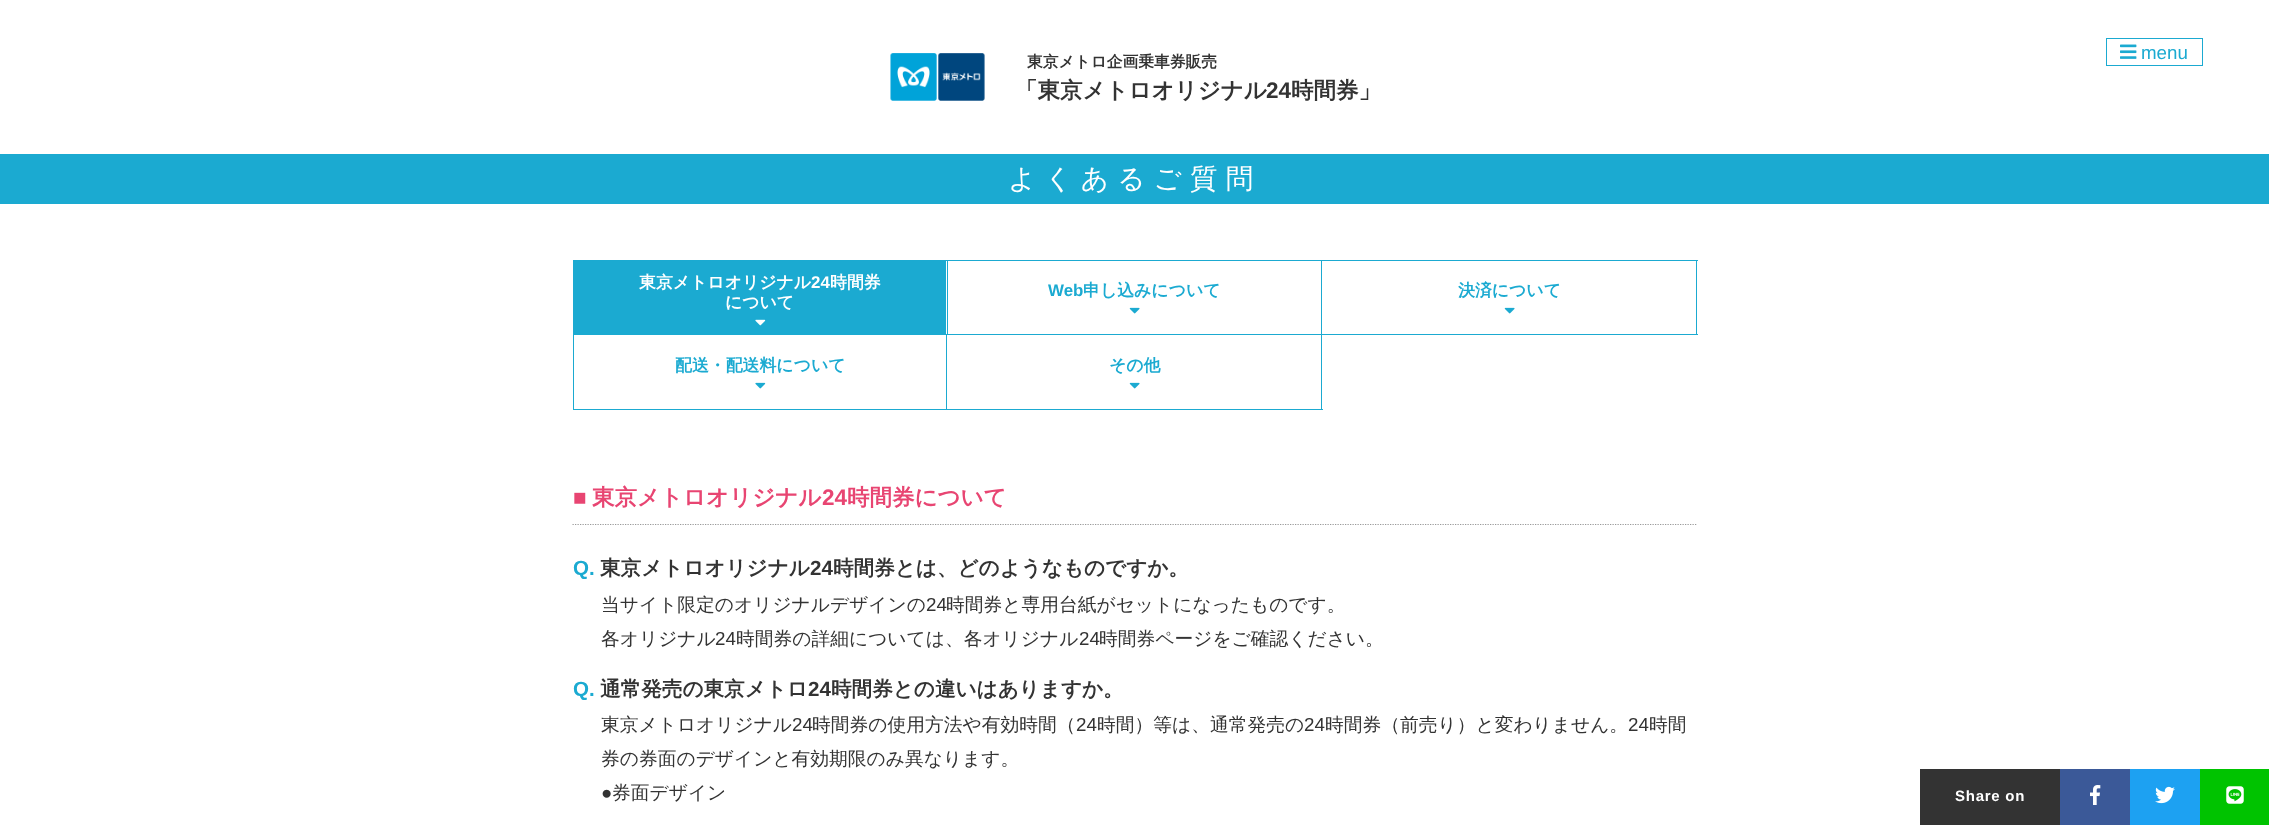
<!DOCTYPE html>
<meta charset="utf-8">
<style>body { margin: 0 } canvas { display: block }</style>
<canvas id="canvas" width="2269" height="825"></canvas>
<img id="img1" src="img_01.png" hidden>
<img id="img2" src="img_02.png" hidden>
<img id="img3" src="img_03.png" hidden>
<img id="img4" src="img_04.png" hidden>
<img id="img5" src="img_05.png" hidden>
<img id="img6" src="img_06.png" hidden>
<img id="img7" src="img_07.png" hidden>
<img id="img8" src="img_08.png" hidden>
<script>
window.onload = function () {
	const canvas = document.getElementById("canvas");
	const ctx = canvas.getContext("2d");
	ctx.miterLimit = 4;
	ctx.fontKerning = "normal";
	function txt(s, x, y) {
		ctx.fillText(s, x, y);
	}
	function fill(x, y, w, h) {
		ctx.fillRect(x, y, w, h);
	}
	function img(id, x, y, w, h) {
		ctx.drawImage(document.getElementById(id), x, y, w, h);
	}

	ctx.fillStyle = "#FFFFFF";
	fill(0, 0, 2269, 825);
	img("img1", 890, 53, 95, 48);
	ctx.strokeStyle = "#1BAAD1";
	ctx.strokeRect(2106.5, 38.5, 96, 27);
	img("img2", 2120, 44, 17, 15);
	ctx.fillStyle = "#1BAAD1";
	fill(0, 154, 2269, 50);
	ctx.strokeRect(573.5, 260.5, 374, 74);
	fill(574, 261, 372, 73);
	img("img3", 755, 319, 11, 7);
	fill(948, 260, 750, 1);
	fill(1321, 260, 1, 150);
	fill(948, 334, 375, 1);
	img("img4", 1129, 307, 11, 7);
	fill(1696, 260, 1, 75);
	fill(1323, 334, 375, 1);
	img("img4", 1504, 307, 11, 7);
	fill(946, 335, 1, 75);
	fill(573, 409, 750, 1);
	fill(573, 335, 1, 75);
	img("img5", 755, 382, 11, 7);
	img("img4", 1129, 382, 11, 7);
	ctx.beginPath();
	ctx.moveTo(572.5, 524.5);
	ctx.lineTo(1697.5, 524.5);
	ctx.strokeStyle = "#999999";
	ctx.lineWidth = 1.2;
	ctx.setLineDash([1.25, 1.25]);
	ctx.stroke();
	ctx.fillStyle = "#333333";
	fill(1920, 769, 140, 56);
	ctx.fillStyle = "#3B5998";
	fill(2060, 769, 70, 56);
	img("img6", 2090, 785, 11, 20);
	ctx.fillStyle = "#1DA1F2";
	fill(2130, 769, 70, 56);
	img("img7", 2155, 786, 20, 18);
	ctx.fillStyle = "#00C300";
	fill(2200, 769, 69, 56);
	img("img8", 2226, 786, 18, 18);
	ctx.font = "bold 15.75px WenQuanYi Zen Hei";
	ctx.fillStyle = "#333333";
	txt("東京メトロ企画乗車券販売", 1027, 67);
	ctx.font = "bold 22.5px WenQuanYi Zen Hei";
	txt("「東京メトロオリジナル", 1015, 98);
	ctx.font = "bold 22.5px Liberation Sans";
	txt("24", 1266, 98);
	ctx.font = "bold 22.5px WenQuanYi Zen Hei";
	txt("時間券」", 1291, 98);
	ctx.font = "18.75px Liberation Sans";
	ctx.fillStyle = "#1BAAD1";
	txt("menu", 2141, 59);
	ctx.letterSpacing = "8.25px";
	ctx.font = "500 27.5px WenQuanYi Zen Hei";
	ctx.fillStyle = "#FFFFFF";
	txt("よくあるご質問", 1008, 188);
	ctx.letterSpacing = "0px";
	ctx.font = "bold 16.9px WenQuanYi Zen Hei";
	txt("東京メトロオリジナル", 639, 288);
	ctx.font = "bold 16.9px Liberation Sans";
	txt("24", 811, 288);
	ctx.font = "bold 16.9px WenQuanYi Zen Hei";
	txt("時間券", 830, 288);
	txt("について", 725, 308);
	ctx.font = "bold 16.9px Liberation Sans";
	ctx.fillStyle = "#1BAAD1";
	txt("Web", 1048, 296);
	ctx.font = "bold 16.9px WenQuanYi Zen Hei";
	txt("申し込みについて", 1083, 296);
	txt("決済について", 1458, 296);
	txt("配送・配送料について", 675, 371);
	txt("その他", 1109, 371);
	ctx.font = "bold 22.5px Liberation Sans";
	ctx.fillStyle = "#E84572";
	txt("■", 573, 505);
	ctx.font = "bold 22.5px WenQuanYi Zen Hei";
	txt("東京メトロオリジナル", 592, 505);
	ctx.font = "bold 22.5px Liberation Sans";
	txt("24", 822, 505);
	ctx.font = "bold 22.5px WenQuanYi Zen Hei";
	txt("時間券について", 847, 505);
	ctx.font = "bold 20.6px Liberation Sans";
	ctx.fillStyle = "#1BAAD1";
	txt("Q.", 573, 575);
	ctx.font = "bold 20.6px WenQuanYi Zen Hei";
	ctx.fillStyle = "#333333";
	txt("東京メトロオリジナル", 600, 575);
	ctx.font = "bold 20.6px Liberation Sans";
	txt("24", 810, 575);
	ctx.font = "bold 20.6px WenQuanYi Zen Hei";
	txt("時間券とは、どのようなものですか。", 833, 575);
	ctx.font = "500 18.75px WenQuanYi Zen Hei";
	txt("当サイト限定のオリジナルデザインの", 601, 611);
	ctx.font = "18.75px Liberation Sans";
	txt("24", 926, 611);
	ctx.font = "500 18.75px WenQuanYi Zen Hei";
	txt("時間券と専用台紙がセットになったものです。", 946, 611);
	txt("各オリジナル", 601, 645);
	ctx.font = "18.75px Liberation Sans";
	txt("24", 715, 645);
	ctx.font = "500 18.75px WenQuanYi Zen Hei";
	txt("時間券の詳細については、各オリジナル", 736, 645);
	ctx.font = "18.75px Liberation Sans";
	txt("24", 1079, 645);
	ctx.font = "500 18.75px WenQuanYi Zen Hei";
	txt("時間券ページをご確認ください。", 1099, 645);
	ctx.font = "bold 20.6px Liberation Sans";
	ctx.fillStyle = "#1BAAD1";
	txt("Q.", 573, 696);
	ctx.font = "bold 20.6px WenQuanYi Zen Hei";
	ctx.fillStyle = "#333333";
	txt("通常発売の東京メトロ", 600, 696);
	ctx.font = "bold 20.6px Liberation Sans";
	txt("24", 808, 696);
	ctx.font = "bold 20.6px WenQuanYi Zen Hei";
	txt("時間券との違いはありますか。", 831, 696);
	ctx.font = "500 18.75px WenQuanYi Zen Hei";
	txt("東京メトロオリジナル", 601, 731);
	ctx.font = "18.75px Liberation Sans";
	txt("24", 792, 731);
	ctx.font = "500 18.75px WenQuanYi Zen Hei";
	txt("時間券の使用方法や有効時間（", 812, 731);
	ctx.font = "18.75px Liberation Sans";
	txt("24", 1076, 731);
	ctx.font = "500 18.75px WenQuanYi Zen Hei";
	txt("時間）等は、通常発売の", 1097, 731);
	ctx.font = "18.75px Liberation Sans";
	txt("24", 1304, 731);
	ctx.font = "500 18.75px WenQuanYi Zen Hei";
	txt("時間券（前売り）と変わりません。", 1325, 731);
	ctx.font = "18.75px Liberation Sans";
	txt("24", 1628, 731);
	ctx.font = "500 18.75px WenQuanYi Zen Hei";
	txt("時間", 1649, 731);
	txt("券の券面のデザインと有効期限のみ異なります。", 601, 765);
	ctx.font = "18.75px Liberation Sans";
	txt("●", 601, 799);
	ctx.font = "500 18.75px WenQuanYi Zen Hei";
	txt("券面デザイン", 612, 799);
	ctx.letterSpacing = "0.75px";
	ctx.font = "bold 15px Liberation Sans";
	ctx.fillStyle = "#FFFFFF";
	txt("Share on", 1955, 801);
};
</script>
